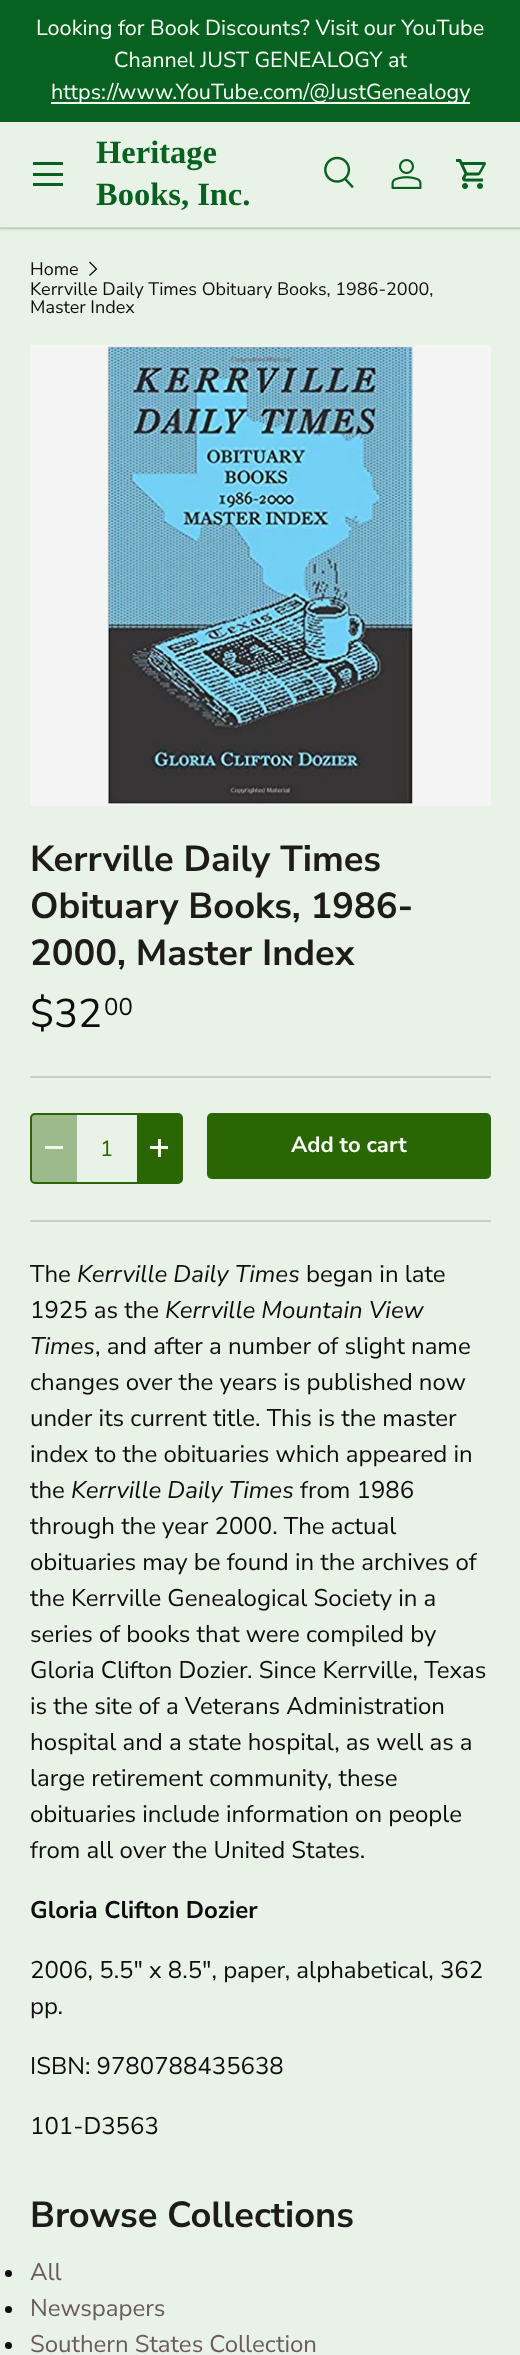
<!DOCTYPE html>
<meta charset="utf-8">
<style>body { margin: 0 } canvas { display: block }</style>
<canvas id="canvas" width="520" height="2355"></canvas>
<img id="img1" src="img_01.png" hidden>
<img id="img2" src="img_02.png" hidden>
<img id="img3" src="img_03.png" hidden>
<img id="img4" src="img_04.png" hidden>
<script>
window.onload = function () {
	const canvas = document.getElementById("canvas");
	const ctx = canvas.getContext("2d");
	ctx.miterLimit = 4;
	ctx.fontKerning = "normal";
	function txt(s, x, y) {
		ctx.fillText(s, x, y);
	}
	function fill(x, y, w, h) {
		ctx.fillRect(x, y, w, h);
	}
	function round(x, y, w, h, r) {
		ctx.beginPath();
		ctx.roundRect(x, y, w, h, r);
		ctx.fill();
	}
	function img(id, x, y, w, h) {
		ctx.drawImage(document.getElementById(id), x, y, w, h);
	}
	let gradient;

	ctx.fillStyle = "#E9F2E6";
	fill(0, 0, 520, 2355);
	ctx.save();
	ctx.beginPath();
	ctx.rect(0, 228, 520, 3);
	ctx.clip();
	ctx.fillStyle = "rgba(0, 0, 0, 0.08)";
	ctx.filter = "blur(2px)";
	ctx.beginPath();
	ctx.rect(-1, 120, 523, 110);
	ctx.fill();
	ctx.filter = "none";
	ctx.restore();
	ctx.fillStyle = "#076121";
	fill(0, 0, 520, 122);
	ctx.fillStyle = "#FAFFF7";
	fill(51, 102, 419, 2);
	ctx.fillStyle = "#076121";
	fill(33, 162, 30, 3);
	fill(33, 183, 30, 3);
	fill(33, 173, 30, 3);
	img("img1", 324, 156, 30, 32);
	img("img2", 391, 159, 31, 30);
	img("img3", 456, 159, 30, 30);
	ctx.fillStyle = "rgba(7, 97, 33, 0.15)";
	fill(0, 227, 520, 2);
	ctx.beginPath();
	ctx.moveTo(89.5, 262);
	ctx.lineTo(96.5, 269);
	ctx.lineTo(89.5, 275.5);
	ctx.strokeStyle = "#0E0D0E";
	ctx.lineWidth = 1.3;
	ctx.stroke();
	ctx.fillStyle = "#F4F4F4";
	fill(30, 345, 461, 461);
	img("img4", 107, 346, 306, 458);
	ctx.fillStyle = "#C8D0C6";
	fill(30, 1076, 461, 2);
	ctx.beginPath();
	ctx.roundRect(31, 1114, 151, 69, 4);
	ctx.strokeStyle = "#2A6604";
	ctx.lineWidth = 2;
	ctx.stroke();
	ctx.fillStyle = "rgba(42, 102, 4, 0.4)";
	fill(32, 1115, 45, 67);
	ctx.fillStyle = "#F0F7ED";
	fill(45, 1146, 18, 3);
	ctx.fillStyle = "#2A6604";
	fill(137, 1115, 44, 67);
	ctx.fillStyle = "#FAFFF7";
	fill(150, 1146, 18, 3);
	fill(158, 1139, 3, 18);
	gradient = ctx.createLinearGradient(-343, 1044, 473, 1248);
	gradient.addColorStop(0.6, "#50892C");
	gradient.addColorStop(0.6, "#2A6604");
	gradient.addColorStop(1, "#2A6604");
	ctx.fillStyle = gradient;
	round(207, 1113, 284, 66, 5);
	ctx.fillStyle = "#C8D0C6";
	fill(30, 1220, 461, 2);
	ctx.fillStyle = "#0E0D0E";
	ctx.beginPath();
	ctx.arc(8.5, 2273.5, 3.5, 0, Math.PI * 2);
	ctx.fill();
	ctx.beginPath();
	ctx.arc(8.5, 2309.5, 3.5, 0, Math.PI * 2);
	ctx.fill();
	ctx.beginPath();
	ctx.arc(8.5, 2345.5, 3.5, 0, Math.PI * 2);
	ctx.fill();
	ctx.font = "21.6px Nunito Sans";
	ctx.fillStyle = "#FAFFF7";
	txt("Looking for Book Discounts? Visit our YouTube", 36, 35);
	txt("Channel JUST GENEALOGY at", 114, 67);
	txt("https://www.YouTube.com/@JustGenealogy", 51, 99);
	ctx.font = "bold 32.5px Liberation Serif";
	ctx.fillStyle = "#076121";
	txt("Heritage", 96, 163);
	txt("Books, Inc.", 96, 205);
	ctx.font = "18px Nunito Sans";
	ctx.fillStyle = "#0E0D0E";
	txt("Home", 30, 275);
	txt("Kerrville Daily Times Obituary Books, 1986-2000,", 30, 295);
	txt("Master Index", 30, 313);
	ctx.font = "bold 36.25px Nunito Sans";
	ctx.fillStyle = "#1D1C19";
	txt("Kerrville Daily Times", 30, 871);
	txt("Obituary Books, 1986-", 30, 918);
	txt("2000, Master Index", 30, 965);
	ctx.font = "40px Nunito Sans";
	ctx.fillStyle = "#0E0D0E";
	txt("$32", 30, 1027);
	ctx.font = "24px Nunito Sans";
	txt("00", 104, 1015);
	ctx.font = "22px Nunito Sans";
	ctx.fillStyle = "#2A6604";
	txt("1", 100, 1156);
	ctx.font = "bold 22px Nunito Sans";
	ctx.fillStyle = "#FAFFF7";
	txt("Add to cart", 291, 1152);
	ctx.font = "24px Nunito Sans";
	ctx.fillStyle = "#0E0D0E";
	txt("The", 30, 1282);
	ctx.font = "italic 24px Nunito Sans";
	txt("Kerrville Daily Times", 77, 1282);
	ctx.font = "24px Nunito Sans";
	txt("began in late", 306, 1282);
	txt("1925 as the", 30, 1318);
	ctx.font = "italic 24px Nunito Sans";
	txt("Kerrville Mountain View", 165, 1318);
	txt("Times", 30, 1354);
	ctx.font = "24px Nunito Sans";
	txt(", and after a number of slight name", 95, 1354);
	txt("changes over the years is published now", 30, 1390);
	txt("under its current title. This is the master", 30, 1426);
	txt("index to the obituaries which appeared in", 30, 1462);
	txt("the", 30, 1498);
	ctx.font = "italic 24px Nunito Sans";
	txt("Kerrville Daily Times", 71, 1498);
	ctx.font = "24px Nunito Sans";
	txt("from 1986", 300, 1498);
	txt("through the year 2000. The actual", 30, 1534);
	txt("obituaries may be found in the archives of", 30, 1570);
	txt("the Kerrville Genealogical Society in a", 30, 1606);
	txt("series of books that were compiled by", 30, 1642);
	txt("Gloria Clifton Dozier. Since Kerrville, Texas", 30, 1678);
	txt("is the site of a Veterans Administration", 30, 1714);
	txt("hospital and a state hospital, as well as a", 30, 1750);
	txt("large retirement community, these", 30, 1786);
	txt("obituaries include information on people", 30, 1822);
	txt("from all over the United States.", 30, 1858);
	ctx.font = "bold 24px Nunito Sans";
	txt("Gloria Clifton Dozier", 30, 1918);
	ctx.font = "24px Nunito Sans";
	txt("2006, 5.5\" x 8.5\", paper, alphabetical, 362", 30, 1978);
	txt("pp.", 30, 2014);
	txt("ISBN: 9780788435638", 30, 2074);
	txt("101-D3563", 30, 2134);
	ctx.font = "bold 36.25px Nunito Sans";
	ctx.fillStyle = "#1D1C19";
	txt("Browse Collections", 30, 2227);
	ctx.font = "24px Nunito Sans";
	ctx.fillStyle = "#6A5B5C";
	txt("All", 30, 2280);
	txt("Newspapers", 30, 2316);
	txt("Southern States Collection", 30, 2352);
};
</script>
